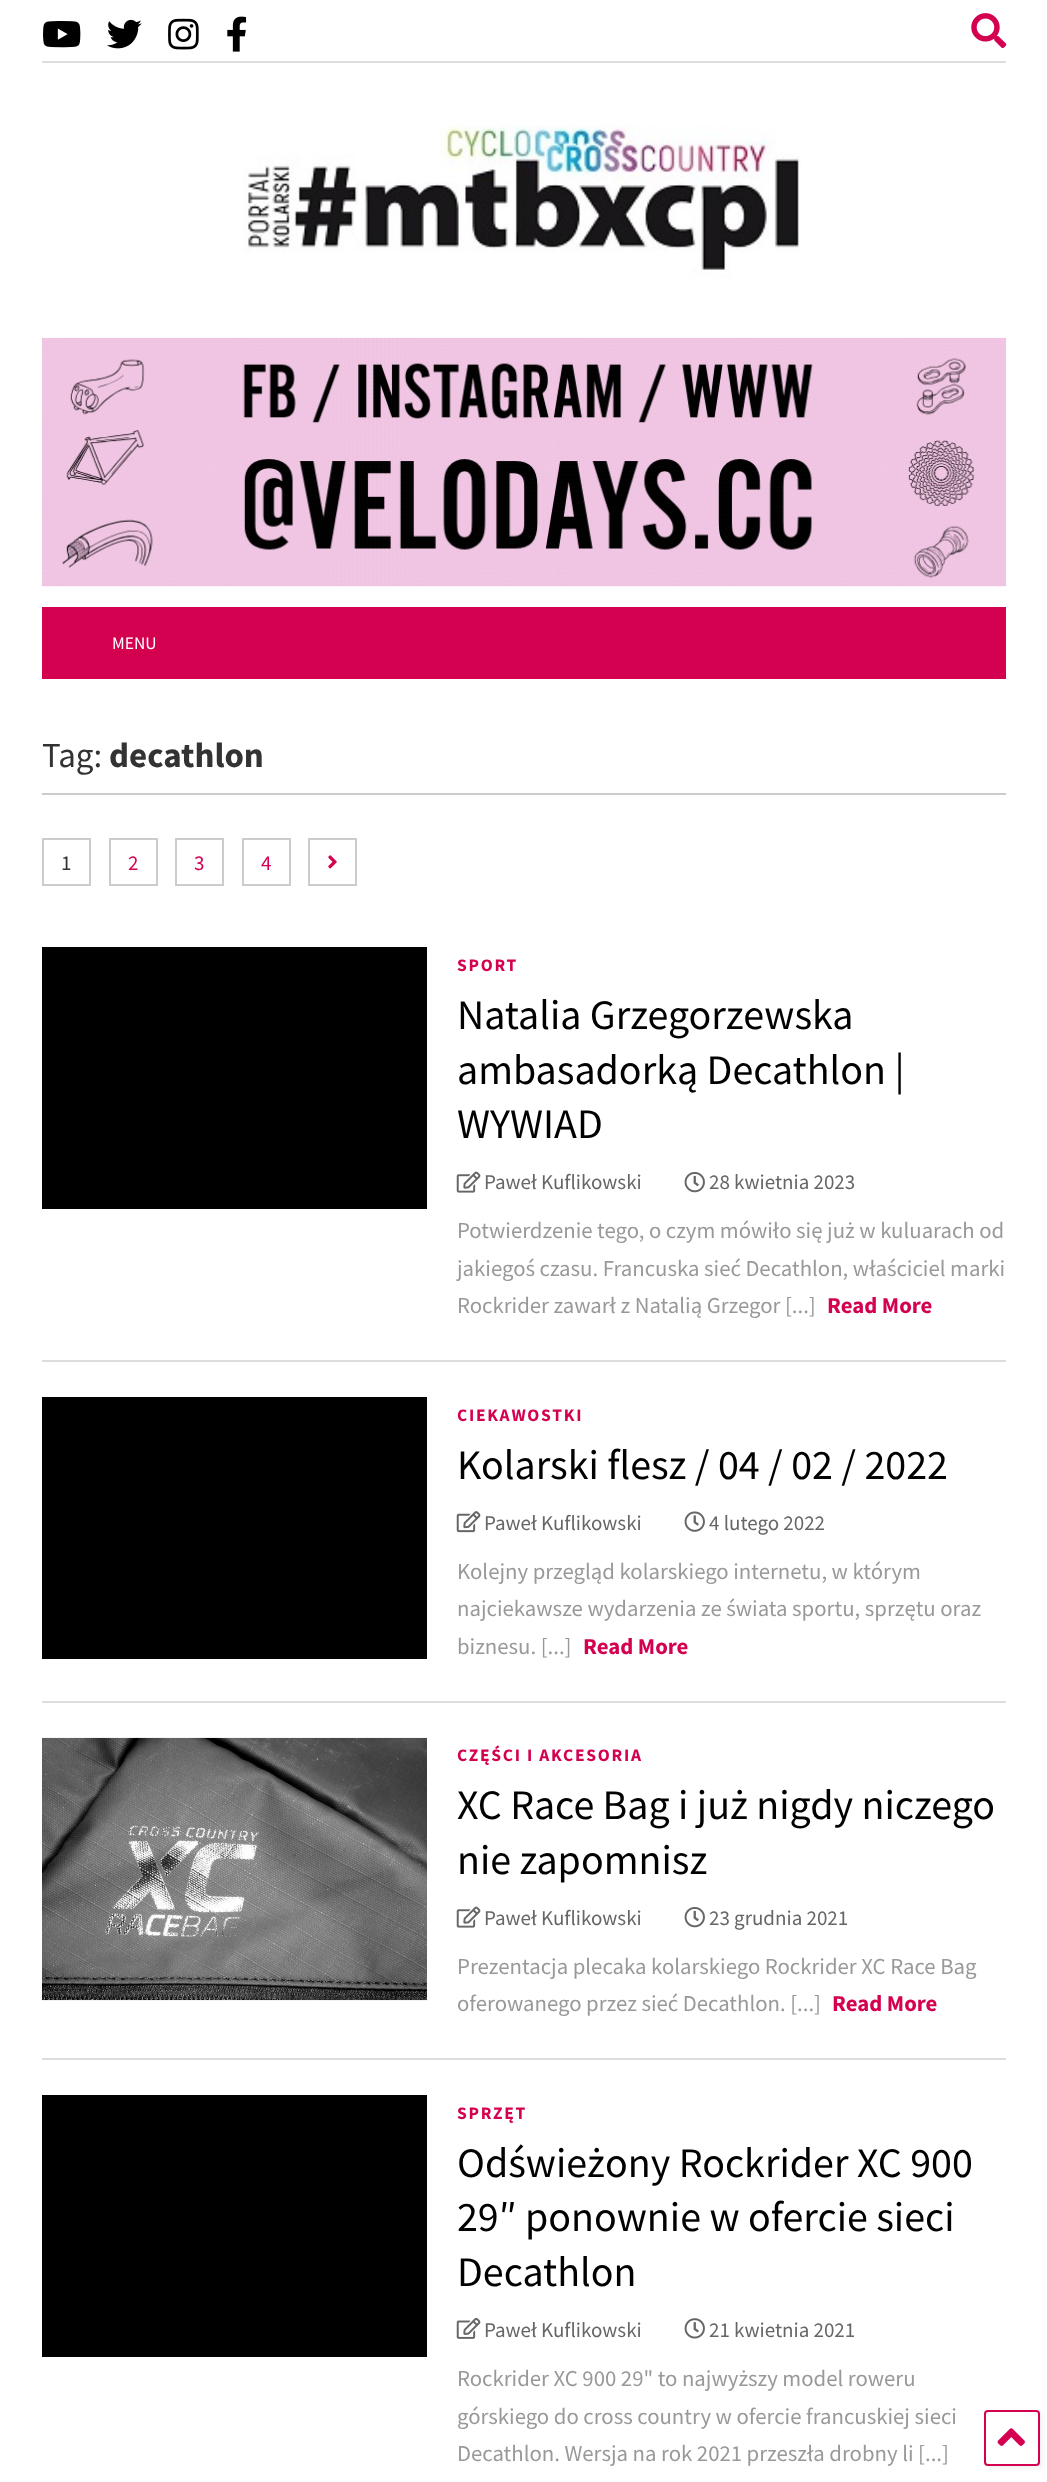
<!DOCTYPE html>
<meta charset="utf-8">
<style>body { margin: 0 } canvas { display: block }</style>
<canvas id="canvas" width="1047" height="2482"></canvas>
<img id="img1" src="img_01.png" hidden>
<img id="img2" src="img_02.png" hidden>
<img id="img3" src="img_03.png" hidden>
<img id="img4" src="img_04.png" hidden>
<img id="img5" src="img_05.png" hidden>
<img id="img6" src="img_06.png" hidden>
<img id="img7" src="img_07.png" hidden>
<img id="img8" src="img_08.png" hidden>
<img id="img9" src="img_09.png" hidden>
<img id="img10" src="img_10.png" hidden>
<img id="img11" src="img_11.png" hidden>
<img id="img12" src="img_12.png" hidden>
<img id="img13" src="img_13.png" hidden>
<img id="img14" src="img_14.png" hidden>
<img id="img15" src="img_15.png" hidden>
<img id="img16" src="img_16.png" hidden>
<script>
window.onload = function () {
	const canvas = document.getElementById("canvas");
	const ctx = canvas.getContext("2d");
	ctx.miterLimit = 4;
	ctx.fontKerning = "normal";
	function txt(s, x, y) {
		ctx.fillText(s, x, y);
	}
	function fill(x, y, w, h) {
		ctx.fillRect(x, y, w, h);
	}
	function img(id, x, y, w, h) {
		ctx.drawImage(document.getElementById(id), x, y, w, h);
	}

	ctx.fillStyle = "#FFFFFF";
	fill(0, 0, 1047, 2482);
	ctx.fillStyle = "#DDDDDD";
	fill(42, 61, 964, 2);
	img("img1", 43, 21, 38, 27);
	img("img2", 107, 19, 35, 30);
	img("img3", 168, 18, 31, 32);
	img("img4", 227, 16, 20, 36);
	img("img5", 971, 13, 36, 36);
	img("img6", 243, 125, 558, 153);
	img("img7", 42, 337, 965, 250);
	ctx.fillStyle = "#D40050";
	fill(42, 607, 964, 72);
	ctx.fillStyle = "#CCCCCC";
	fill(42, 793, 964, 2);
	ctx.strokeStyle = "#CCCCCC";
	ctx.lineWidth = 2;
	ctx.strokeRect(43, 839, 47, 46);
	ctx.strokeRect(110, 839, 47, 46);
	ctx.strokeRect(176, 839, 47, 46);
	ctx.strokeRect(243, 839, 47, 46);
	ctx.strokeRect(309, 839, 47, 46);
	img("img8", 328, 855, 9, 14);
	ctx.fillStyle = "#000000";
	fill(42, 947, 385, 262);
	img("img9", 456, 1171, 25, 22);
	img("img10", 684, 1172, 21, 21);
	ctx.fillStyle = "#DDDDDD";
	fill(42, 1360, 964, 2);
	ctx.fillStyle = "#000000";
	fill(42, 1397, 385, 262);
	img("img11", 456, 1511, 25, 22);
	img("img12", 684, 1511, 21, 21);
	ctx.fillStyle = "#DDDDDD";
	fill(42, 1701, 964, 2);
	img("img13", 42, 1737, 385, 264);
	img("img9", 456, 1906, 25, 22);
	img("img10", 684, 1907, 21, 21);
	fill(42, 2058, 964, 2);
	ctx.fillStyle = "#000000";
	fill(42, 2095, 385, 262);
	img("img14", 456, 2317, 25, 22);
	img("img15", 684, 2318, 21, 21);
	ctx.fillStyle = "rgba(0, 0, 0, 0.05)";
	ctx.filter = "blur(2.5px)";
	ctx.beginPath();
	ctx.roundRect(987, 2413, 56, 56, 4);
	ctx.fill();
	ctx.filter = "none";
	ctx.fillStyle = "#FFFFFF";
	ctx.beginPath();
	ctx.roundRect(985, 2411, 54, 54, 3);
	ctx.fill();
	ctx.strokeStyle = "#D40050";
	ctx.stroke();
	img("img16", 997, 2428, 28, 18);
	ctx.font = "17.5px Source Sans Pro";
	txt("MENU", 112, 649);
	ctx.font = "35px Source Sans Pro";
	ctx.fillStyle = "#333333";
	txt("Tag:", 42, 767);
	ctx.font = "bold 35px Source Sans Pro";
	txt("decathlon", 109, 767);
	ctx.font = "21px Source Sans Pro";
	txt("1", 61, 870);
	ctx.fillStyle = "#D40050";
	txt("2", 128, 870);
	txt("3", 194, 870);
	txt("4", 261, 870);
	ctx.letterSpacing = "1.75px";
	ctx.font = "bold 17.5px Source Sans Pro";
	txt("SPORT", 457, 971);
	ctx.letterSpacing = "0px";
	ctx.font = "42px Source Sans Pro";
	ctx.fillStyle = "#000000";
	txt("Natalia Grzegorzewska", 457, 1029);
	txt("ambasadorką Decathlon |", 457, 1084);
	txt("WYWIAD", 457, 1138);
	ctx.font = "21px Source Sans Pro";
	ctx.fillStyle = "#666666";
	txt("Paweł Kuflikowski", 484, 1189);
	txt("28 kwietnia 2023", 709, 1189);
	ctx.font = "22.75px Source Sans Pro";
	ctx.fillStyle = "#999999";
	txt("Potwierdzenie tego, o czym mówiło się już w kuluarach od", 457, 1238);
	txt("jakiegoś czasu. Francuska sieć Decathlon, właściciel marki", 457, 1276);
	txt("Rockrider zawarł z Natalią Grzegor [...]", 457, 1313);
	ctx.font = "bold 22.75px Source Sans Pro";
	ctx.fillStyle = "#D40050";
	txt("Read More", 827, 1313);
	ctx.letterSpacing = "1.75px";
	ctx.font = "bold 17.5px Source Sans Pro";
	txt("CIEKAWOSTKI", 457, 1421);
	ctx.letterSpacing = "0px";
	ctx.font = "42px Source Sans Pro";
	ctx.fillStyle = "#000000";
	txt("Kolarski flesz / 04 / 02 / 2022", 457, 1479);
	ctx.font = "21px Source Sans Pro";
	ctx.fillStyle = "#666666";
	txt("Paweł Kuflikowski", 484, 1530);
	txt("4 lutego 2022", 709, 1530);
	ctx.font = "22.75px Source Sans Pro";
	ctx.fillStyle = "#999999";
	txt("Kolejny przegląd kolarskiego internetu, w którym", 457, 1579);
	txt("najciekawsze wydarzenia ze świata sportu, sprzętu oraz", 457, 1616);
	txt("biznesu. [...]", 457, 1654);
	ctx.font = "bold 22.75px Source Sans Pro";
	ctx.fillStyle = "#D40050";
	txt("Read More", 583, 1654);
	ctx.letterSpacing = "1.75px";
	ctx.font = "bold 17.5px Source Sans Pro";
	txt("CZĘŚCI I AKCESORIA", 457, 1761);
	ctx.letterSpacing = "0px";
	ctx.font = "42px Source Sans Pro";
	ctx.fillStyle = "#000000";
	txt("XC Race Bag i już nigdy niczego", 457, 1819);
	txt("nie zapomnisz", 457, 1874);
	ctx.font = "21px Source Sans Pro";
	ctx.fillStyle = "#666666";
	txt("Paweł Kuflikowski", 484, 1925);
	txt("23 grudnia 2021", 709, 1925);
	ctx.font = "22.75px Source Sans Pro";
	ctx.fillStyle = "#999999";
	txt("Prezentacja plecaka kolarskiego Rockrider XC Race Bag", 457, 1974);
	txt("oferowanego przez sieć Decathlon. [...]", 457, 2011);
	ctx.font = "bold 22.75px Source Sans Pro";
	ctx.fillStyle = "#D40050";
	txt("Read More", 832, 2011);
	ctx.letterSpacing = "1.75px";
	ctx.font = "bold 17.5px Source Sans Pro";
	txt("SPRZĘT", 457, 2119);
	ctx.letterSpacing = "0px";
	ctx.font = "42px Source Sans Pro";
	ctx.fillStyle = "#000000";
	txt("Odświeżony Rockrider XC 900", 457, 2177);
	txt("29″ ponownie w ofercie sieci", 457, 2231);
	txt("Decathlon", 457, 2286);
	ctx.font = "21px Source Sans Pro";
	ctx.fillStyle = "#666666";
	txt("Paweł Kuflikowski", 484, 2337);
	txt("21 kwietnia 2021", 709, 2337);
	ctx.font = "22.75px Source Sans Pro";
	ctx.fillStyle = "#999999";
	txt("Rockrider XC 900 29\" to najwyższy model roweru", 457, 2386);
	txt("górskiego do cross country w ofercie francuskiej sieci", 457, 2424);
	txt("Decathlon. Wersja na rok 2021 przeszła drobny li [...]", 457, 2461);
};
</script>
